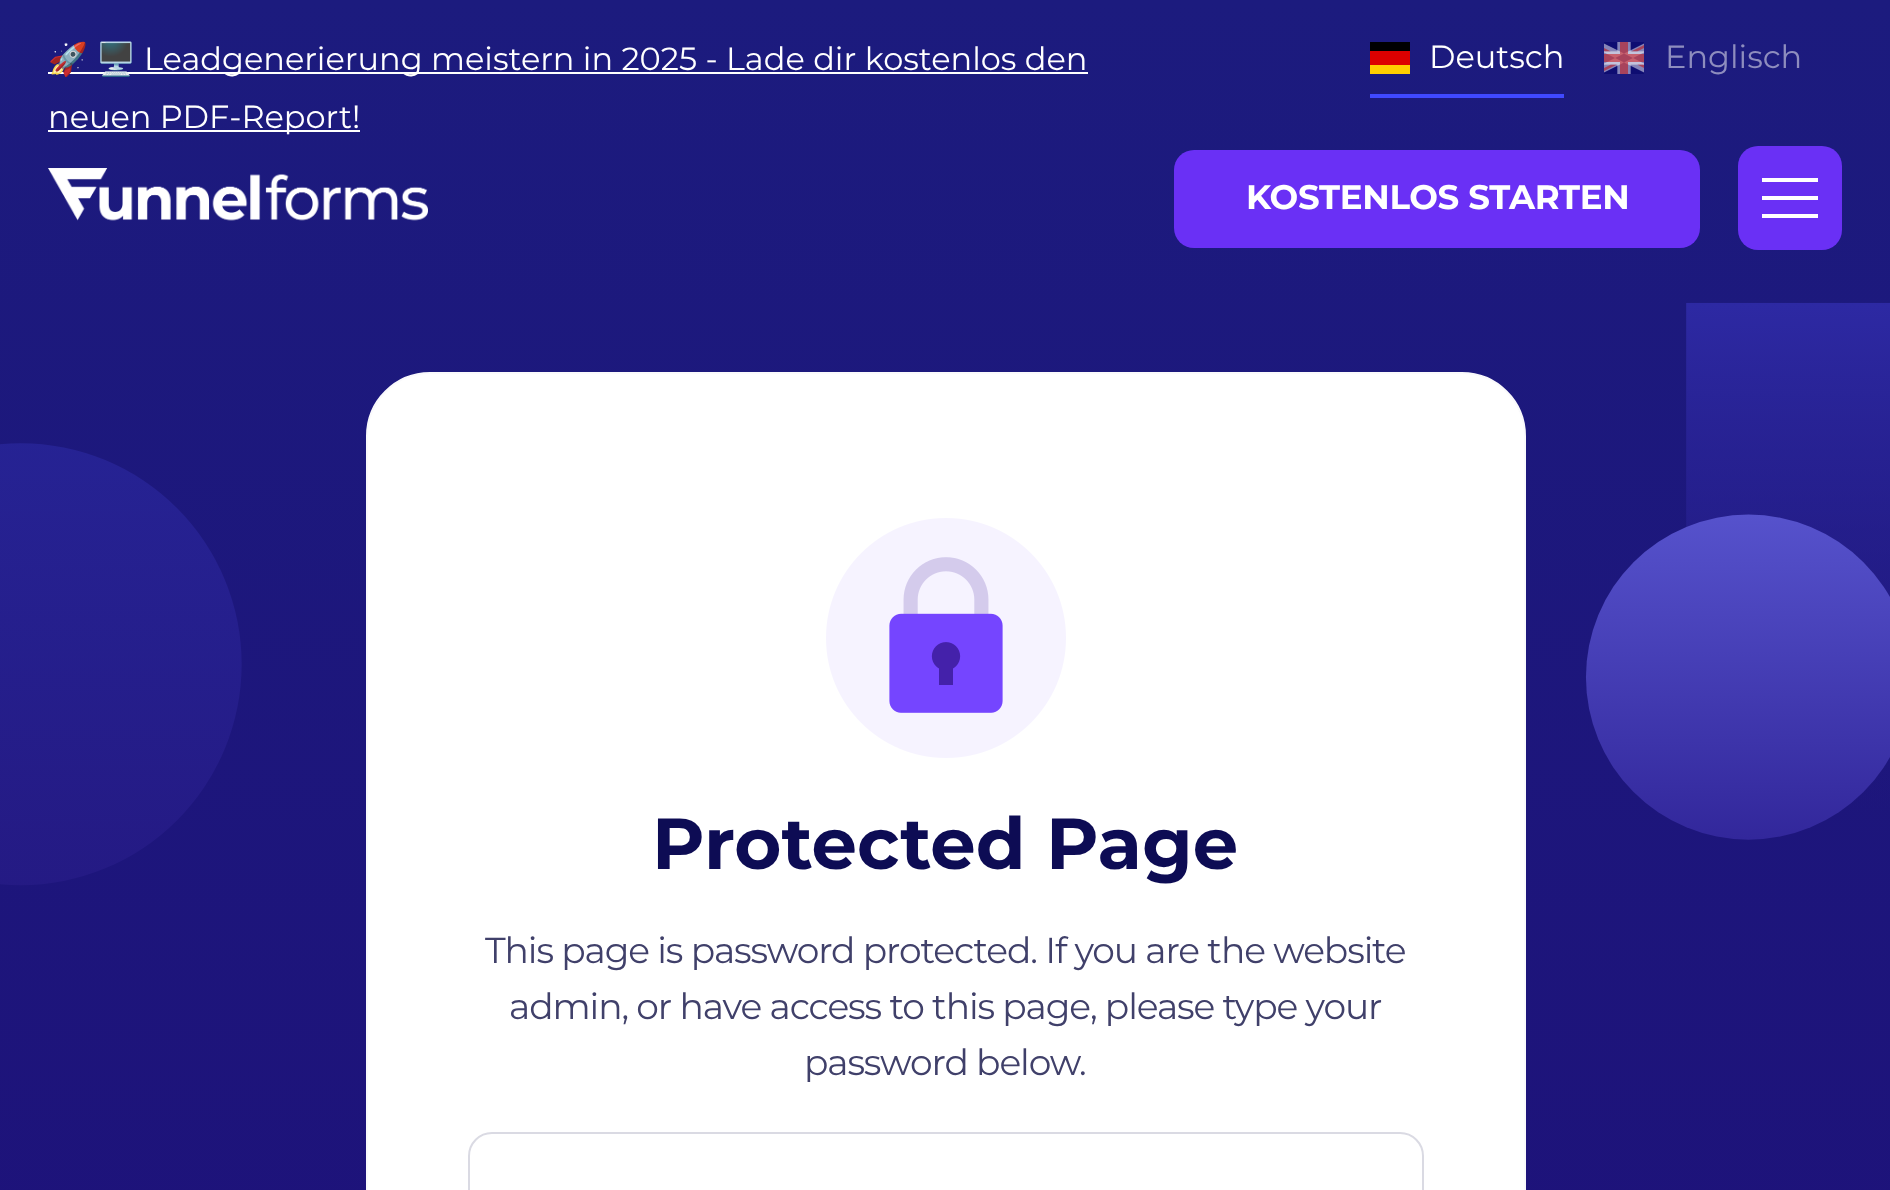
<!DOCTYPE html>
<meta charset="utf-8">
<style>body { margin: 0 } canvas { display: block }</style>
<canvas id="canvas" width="1890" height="1190"></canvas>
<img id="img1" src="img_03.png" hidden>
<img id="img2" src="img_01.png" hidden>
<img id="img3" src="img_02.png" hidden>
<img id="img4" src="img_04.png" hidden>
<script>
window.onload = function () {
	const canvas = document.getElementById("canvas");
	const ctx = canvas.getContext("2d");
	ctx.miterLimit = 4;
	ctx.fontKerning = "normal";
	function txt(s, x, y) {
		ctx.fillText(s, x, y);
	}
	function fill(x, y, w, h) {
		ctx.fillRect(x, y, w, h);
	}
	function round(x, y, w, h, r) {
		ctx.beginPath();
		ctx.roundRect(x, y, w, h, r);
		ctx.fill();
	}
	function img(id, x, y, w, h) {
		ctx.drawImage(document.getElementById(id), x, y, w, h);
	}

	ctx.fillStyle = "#FFFFFF";
	fill(0, 0, 1890, 1190);
	img("img1", 0, 0, 1890, 1190);
	fill(48, 72, 1040, 2);
	fill(48, 130, 312, 2);
	ctx.fillStyle = "#FFCE00";
	fill(1370, 65, 40, 9);
	ctx.fillStyle = "#000000";
	fill(1370, 42, 40, 9);
	ctx.fillStyle = "#DD0000";
	fill(1370, 51, 40, 14);
	ctx.fillStyle = "#4049FF";
	fill(1370, 94, 194, 4);
	img("img2", 1604, 42, 40, 32);
	img("img3", 48, 168, 380, 53);
	ctx.fillStyle = "#6A30F5";
	round(1174, 150, 526, 98, 20);
	round(1738, 146, 104, 104, 20);
	ctx.fillStyle = "#FFFFFF";
	fill(1762, 178, 56, 4);
	fill(1762, 196, 56, 4);
	fill(1762, 214, 56, 4);
	ctx.beginPath();
	ctx.roundRect(367, 373, 1158, 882, 63);
	ctx.fill();
	ctx.strokeStyle = "#FAFAFC";
	ctx.lineWidth = 2;
	ctx.stroke();
	img("img4", 826, 518, 240, 240);
	ctx.beginPath();
	ctx.roundRect(469, 1133, 954, 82, 23);
	ctx.strokeStyle = "#DADAE3";
	ctx.stroke();
	ctx.font = "32px Noto Color Emoji";
	txt("🚀", 48, 70);
	txt("🖥️", 96, 70);
	ctx.font = "32px Montserrat";
	txt("Leadgenerierung meistern in 2025 - Lade dir kostenlos den", 144, 70);
	txt("neuen PDF-Report!", 48, 128);
	txt("Deutsch", 1429, 68);
	ctx.fillStyle = "#8E8DBE";
	txt("Englisch", 1665, 68);
	ctx.letterSpacing = "-0.3px";
	ctx.font = "bold 34px Montserrat";
	ctx.fillStyle = "#FFFFFF";
	txt("KOSTENLOS STARTEN", 1246, 209);
	ctx.letterSpacing = "0px";
	ctx.font = "bold 72px Montserrat";
	ctx.fillStyle = "#0D0C54";
	txt("Protected Page", 652, 869);
	ctx.letterSpacing = "-1.08px";
	ctx.font = "36px Montserrat";
	ctx.fillStyle = "#40406A";
	txt("This page is password protected. If you are the website", 485, 963);
	txt("admin, or have access to this page, please type your", 509, 1019);
	txt("password below.", 804, 1075);
};
</script>
